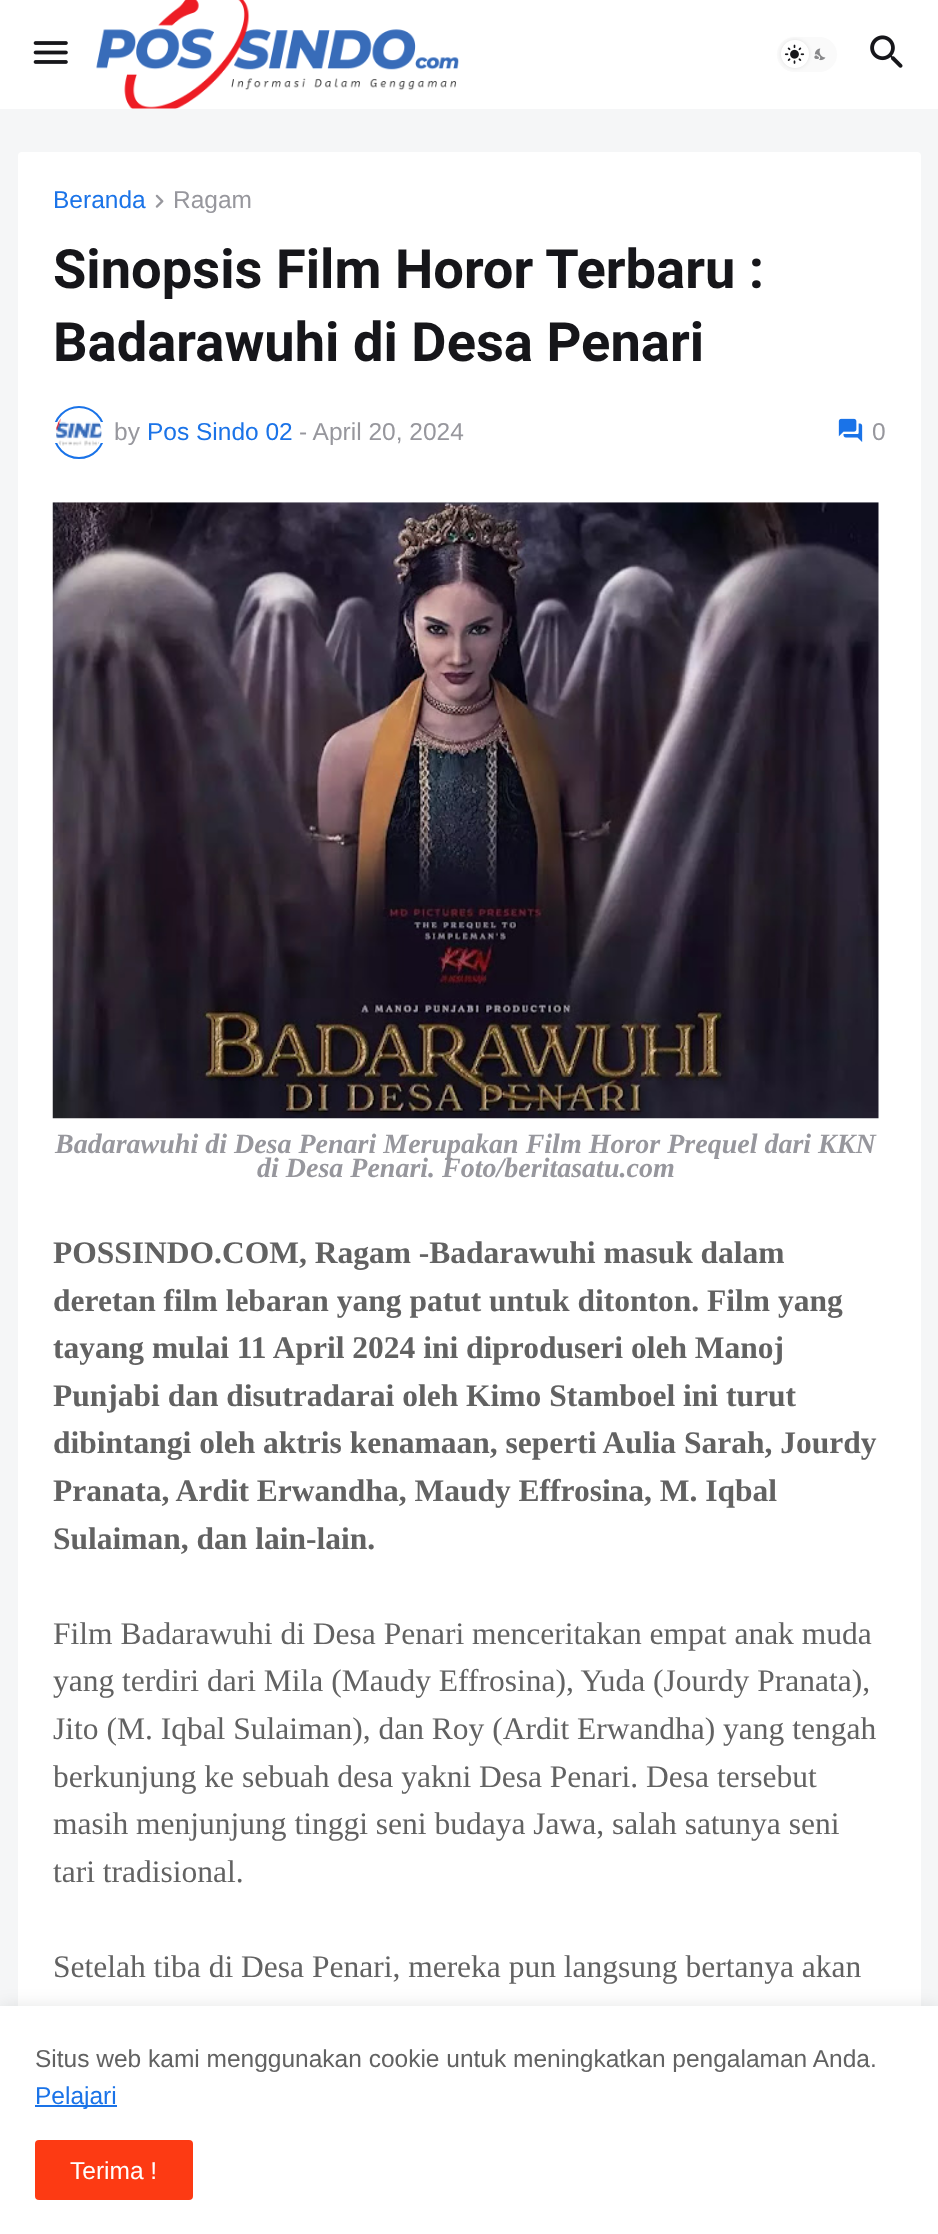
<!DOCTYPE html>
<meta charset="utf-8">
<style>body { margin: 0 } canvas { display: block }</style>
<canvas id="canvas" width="938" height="2234"></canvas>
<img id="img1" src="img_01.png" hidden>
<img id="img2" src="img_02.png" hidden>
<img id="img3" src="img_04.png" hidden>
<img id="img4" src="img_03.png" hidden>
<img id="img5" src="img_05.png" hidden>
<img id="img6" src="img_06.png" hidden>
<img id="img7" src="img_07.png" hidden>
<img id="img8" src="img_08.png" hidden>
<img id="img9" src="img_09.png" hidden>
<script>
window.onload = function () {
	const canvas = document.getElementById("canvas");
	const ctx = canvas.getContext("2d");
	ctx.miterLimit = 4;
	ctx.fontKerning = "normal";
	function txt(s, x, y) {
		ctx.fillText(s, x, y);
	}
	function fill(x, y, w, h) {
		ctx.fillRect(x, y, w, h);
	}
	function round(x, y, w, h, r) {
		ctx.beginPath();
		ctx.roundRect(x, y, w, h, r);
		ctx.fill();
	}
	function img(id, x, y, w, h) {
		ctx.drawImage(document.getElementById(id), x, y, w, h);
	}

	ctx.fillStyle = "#F5F6F7";
	fill(0, 0, 938, 2234);
	ctx.fillStyle = "#FFFFFF";
	fill(0, 0, 938, 109);
	img("img1", 33, 41, 35, 23);
	img("img2", 96, 0, 363, 109);
	ctx.fillStyle = "#FAFAFA";
	round(777, 37, 60, 35, 17.5);
	img("img3", 814, 48, 12, 13);
	ctx.fillStyle = "rgba(0, 0, 0, 0.1)";
	ctx.filter = "blur(2px)";
	ctx.beginPath();
	ctx.roundRect(781, 40, 28, 28, 14);
	ctx.fill();
	ctx.filter = "none";
	ctx.fillStyle = "#FFFFFF";
	ctx.beginPath();
	ctx.arc(795, 54, 14, 0, Math.PI * 2);
	ctx.fill();
	img("img4", 784, 44, 21, 20);
	img("img5", 870, 35, 33, 33);
	round(18, 152, 903, 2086, 4);
	img("img6", 155, 194, 9, 14);
	ctx.beginPath();
	ctx.roundRect(54, 407, 50, 51, 25);
	ctx.strokeStyle = "#1A73E8";
	ctx.lineWidth = 2;
	ctx.stroke();
	fill(53, 422, 52, 21);
	img("img7", 56, 418, 46, 28);
	img("img8", 838, 418, 25, 24);
	img("img9", 52, 502, 827, 617);
	ctx.fillStyle = "rgba(0, 0, 0, 0.1)";
	ctx.filter = "blur(9px)";
	ctx.beginPath();
	ctx.rect(0, 2006, 938, 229);
	ctx.fill();
	ctx.filter = "none";
	ctx.fillStyle = "#FFFFFF";
	fill(0, 2006, 938, 228);
	ctx.fillStyle = "#1A73E8";
	fill(35, 2105, 82, 2);
	ctx.fillStyle = "#FD3A13";
	round(35, 2140, 158, 60, 4);
	ctx.font = "24.5px Liberation Sans";
	ctx.fillStyle = "#1A73E8";
	txt("Beranda", 53, 208);
	ctx.fillStyle = "#97979D";
	txt("Ragam", 173, 208);
	ctx.font = "bold 54.25px Roboto";
	ctx.fillStyle = "#16161A";
	txt("Sinopsis Film Horor Terbaru :", 53, 288);
	txt("Badarawuhi di Desa Penari", 53, 361);
	ctx.font = "24.5px Liberation Sans";
	ctx.fillStyle = "#97979D";
	txt("by", 114, 440);
	ctx.fillStyle = "#1A73E8";
	txt("Pos Sindo 02", 147, 440);
	ctx.fillStyle = "#97979D";
	txt("- April 20, 2024", 299, 440);
	txt("0", 872, 440);
	ctx.font = "italic bold 28px Liberation Serif";
	txt("Badarawuhi di Desa Penari Merupakan Film Horor Prequel dari KKN", 55, 1153);
	txt("di Desa Penari. Foto/beritasatu.com", 257, 1177);
	ctx.font = "bold 31.5px Liberation Serif";
	ctx.fillStyle = "#626262";
	txt("POSSINDO.COM, Ragam -Badarawuhi masuk dalam", 53, 1263);
	txt("deretan film lebaran yang patut untuk ditonton. Film yang", 53, 1311);
	txt("tayang mulai 11 April 2024 ini diproduseri oleh Manoj", 53, 1358);
	txt("Punjabi dan disutradarai oleh Kimo Stamboel ini turut", 53, 1406);
	txt("dibintangi oleh aktris kenamaan, seperti Aulia Sarah, Jourdy", 53, 1453);
	txt("Pranata, Ardit Erwandha, Maudy Effrosina, M. Iqbal", 53, 1501);
	txt("Sulaiman, dan lain-lain.", 53, 1549);
	ctx.font = "31.5px Liberation Serif";
	txt("Film Badarawuhi di Desa Penari menceritakan empat anak muda", 53, 1644);
	txt("yang terdiri dari Mila (Maudy Effrosina), Yuda (Jourdy Pranata),", 53, 1691);
	txt("Jito (M. Iqbal Sulaiman), dan Roy (Ardit Erwandha) yang tengah", 53, 1739);
	txt("berkunjung ke sebuah desa yakni Desa Penari. Desa tersebut", 53, 1787);
	txt("masih menjunjung tinggi seni budaya Jawa, salah satunya seni", 53, 1834);
	txt("tari tradisional.", 53, 1882);
	txt("Setelah tiba di Desa Penari, mereka pun langsung bertanya akan", 53, 1977);
	ctx.font = "24.5px Liberation Sans";
	txt("Situs web kami menggunakan cookie untuk meningkatkan pengalaman Anda.", 35, 2067);
	ctx.fillStyle = "#1A73E8";
	txt("Pelajari", 35, 2104);
	ctx.fillStyle = "#FFFFFF";
	txt("Terima !", 70, 2179);
};
</script>
